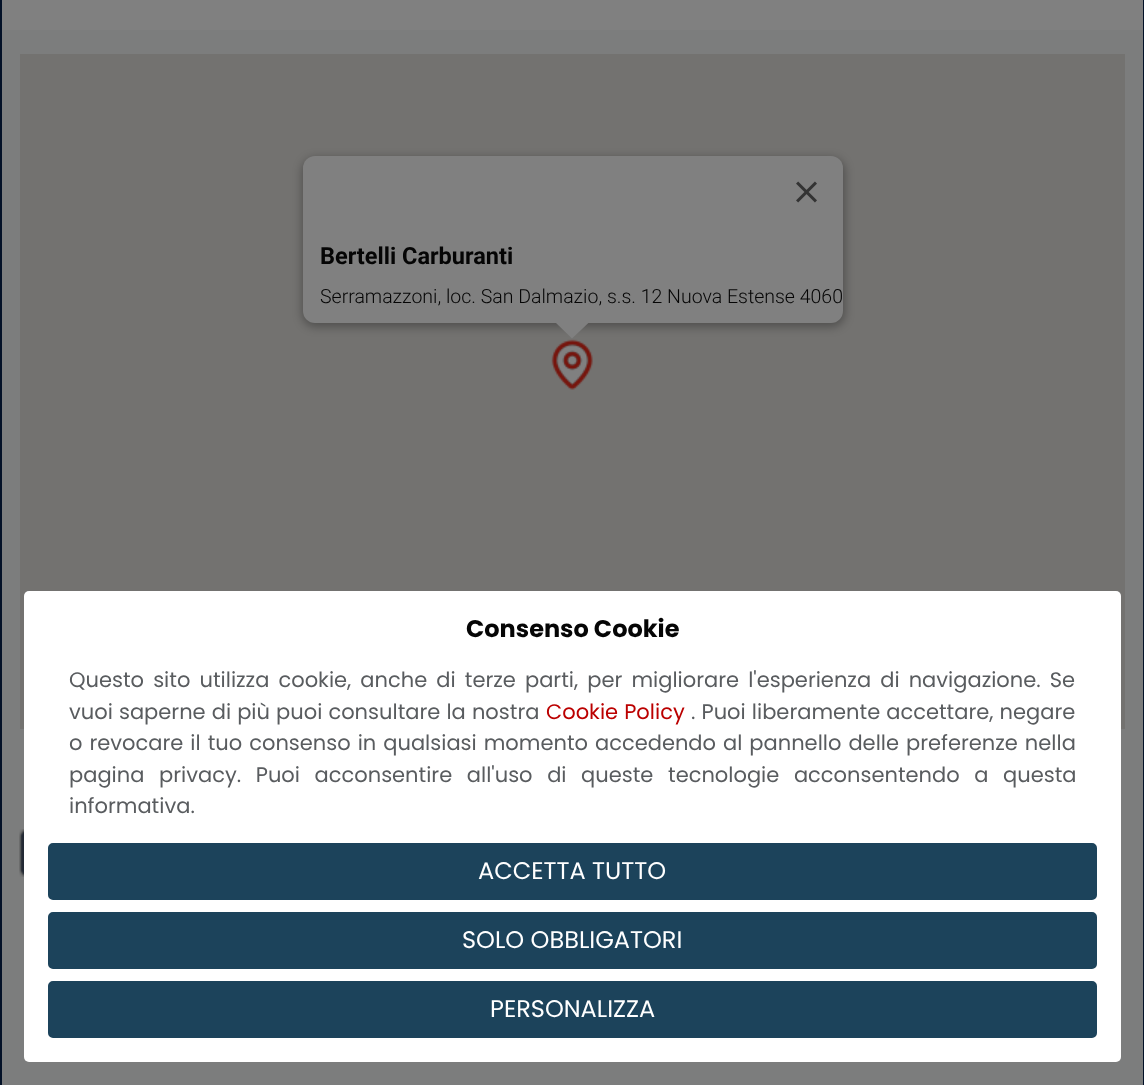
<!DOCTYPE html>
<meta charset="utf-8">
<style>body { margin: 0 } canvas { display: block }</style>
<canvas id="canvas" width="1144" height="1085"></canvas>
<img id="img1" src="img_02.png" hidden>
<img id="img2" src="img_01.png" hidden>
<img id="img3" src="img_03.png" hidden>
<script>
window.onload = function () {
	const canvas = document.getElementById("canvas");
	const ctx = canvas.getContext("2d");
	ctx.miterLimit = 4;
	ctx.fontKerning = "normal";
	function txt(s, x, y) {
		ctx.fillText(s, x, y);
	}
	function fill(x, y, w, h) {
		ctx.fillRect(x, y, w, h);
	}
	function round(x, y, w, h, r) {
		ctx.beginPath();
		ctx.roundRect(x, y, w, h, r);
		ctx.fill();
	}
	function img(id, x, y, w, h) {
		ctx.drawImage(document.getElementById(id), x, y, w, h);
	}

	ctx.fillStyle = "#808080";
	fill(0, 0, 1144, 1085);
	ctx.fillStyle = "#031127";
	fill(1143, 0, 1, 1085);
	fill(0, 0, 2, 1085);
	ctx.fillStyle = "#7C7D7D";
	fill(2, 30, 1141, 1055);
	ctx.fillStyle = "#737270";
	fill(20, 54, 1105, 675);
	img("img1", 551, 339, 42, 51);
	ctx.fillStyle = "rgba(0, 0, 0, 0.3)";
	ctx.filter = "blur(5px)";
	ctx.beginPath();
	ctx.roundRect(302, 158, 543, 169, 14);
	ctx.fill();
	ctx.filter = "none";
	ctx.fillStyle = "#808080";
	round(303, 156, 540, 167, 12);
	img("img2", 796, 181, 21, 22);
	ctx.beginPath();
	ctx.moveTo(555, 321);
	ctx.lineTo(555, 322);
	ctx.lineTo(572, 338.5);
	ctx.lineTo(590.5, 321);
	ctx.closePath();
	ctx.fill();
	img("img3", 19, 829, 5, 48);
	ctx.fillStyle = "#FFFFFF";
	round(24, 591, 1097, 471, 5);
	ctx.fillStyle = "#1C435B";
	ctx.beginPath();
	ctx.roundRect(49, 844, 1047, 55, 4);
	ctx.fill();
	ctx.strokeStyle = "#1C435B";
	ctx.lineWidth = 2;
	ctx.stroke();
	ctx.beginPath();
	ctx.roundRect(49, 913, 1047, 55, 4);
	ctx.fill();
	ctx.stroke();
	ctx.beginPath();
	ctx.roundRect(49, 982, 1047, 55, 4);
	ctx.fill();
	ctx.stroke();
	ctx.font = "bold 23.5px Roboto";
	ctx.fillStyle = "#050505";
	txt("Bertelli Carburanti", 320, 264);
	ctx.font = "300 19.5px Roboto";
	txt("Serramazzoni, loc. San Dalmazio, s.s. 12 Nuova Estense 4060", 320, 303);
	ctx.font = "bold 24px Poppins";
	txt("Consenso Cookie", 466, 637);
	ctx.wordSpacing = "3.5px";
	ctx.font = "21px Poppins";
	ctx.fillStyle = "#595C5F";
	txt("Questo sito utilizza cookie, anche di terze parti, per migliorare l'esperienza di navigazione. Se", 69, 687);
	ctx.wordSpacing = "0.5px";
	txt("vuoi saperne di più puoi consultare la nostra", 69, 719);
	ctx.fillStyle = "#BB0000";
	txt("Cookie Policy", 546, 719);
	ctx.fillStyle = "#595C5F";
	txt(". Puoi liberamente accettare, negare", 691, 719);
	ctx.wordSpacing = "1.4px";
	txt("o revocare il tuo consenso in qualsiasi momento accedendo al pannello delle preferenze nella", 69, 750);
	ctx.wordSpacing = "9px";
	txt("pagina privacy. Puoi acconsentire all'uso di queste tecnologie acconsentendo a questa", 69, 782);
	ctx.wordSpacing = "0px";
	txt("informativa.", 69, 813);
	ctx.font = "24px Poppins";
	ctx.fillStyle = "#FFFFFF";
	txt("ACCETTA TUTTO", 478, 879);
	txt("SOLO OBBLIGATORI", 462, 948);
	txt("PERSONALIZZA", 490, 1017);
};
</script>
